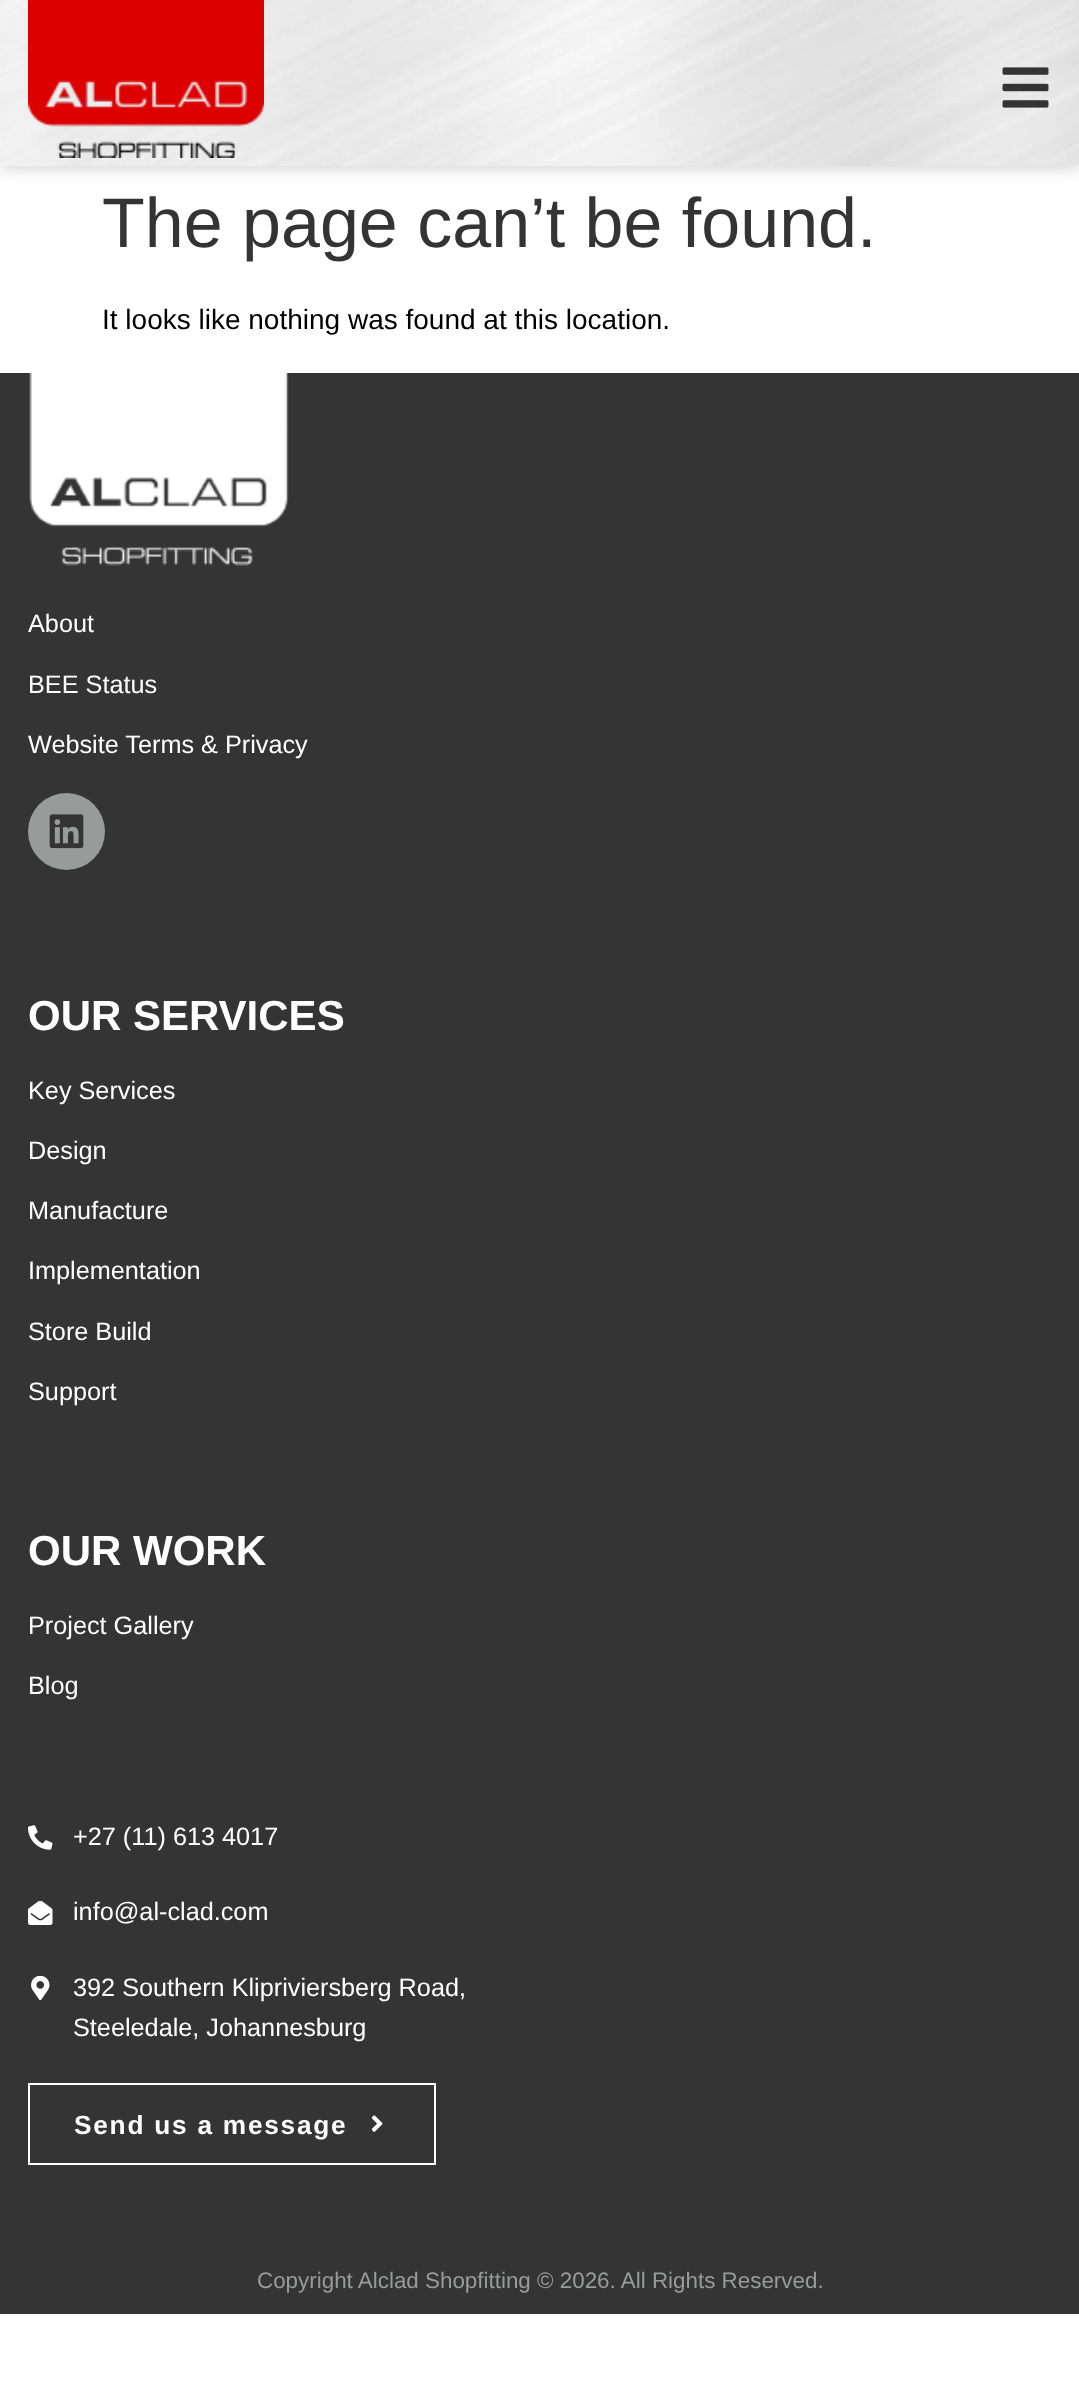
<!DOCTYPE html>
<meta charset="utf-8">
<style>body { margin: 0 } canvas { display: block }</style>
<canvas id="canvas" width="1079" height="2382"></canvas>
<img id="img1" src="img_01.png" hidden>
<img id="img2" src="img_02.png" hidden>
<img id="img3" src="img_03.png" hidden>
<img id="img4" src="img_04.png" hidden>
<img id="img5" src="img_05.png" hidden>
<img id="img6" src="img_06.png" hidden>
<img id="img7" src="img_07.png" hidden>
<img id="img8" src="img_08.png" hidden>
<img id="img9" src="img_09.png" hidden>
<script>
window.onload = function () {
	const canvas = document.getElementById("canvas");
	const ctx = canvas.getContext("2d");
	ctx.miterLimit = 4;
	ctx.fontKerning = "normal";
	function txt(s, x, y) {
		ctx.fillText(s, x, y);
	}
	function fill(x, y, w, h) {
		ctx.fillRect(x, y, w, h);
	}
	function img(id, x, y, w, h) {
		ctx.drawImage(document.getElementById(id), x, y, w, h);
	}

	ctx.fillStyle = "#FFFFFF";
	fill(0, 0, 1079, 2382);
	ctx.fillStyle = "rgba(0, 0, 0, 0.22)";
	ctx.filter = "blur(9px)";
	ctx.beginPath();
	ctx.rect(0, 0, 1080, 166);
	ctx.fill();
	ctx.filter = "none";
	img("img1", 0, 0, 1079, 166);
	img("img2", 28, 0, 236, 158);
	img("img3", 1002, 67, 47, 41);
	ctx.fillStyle = "#343435";
	fill(0, 373, 1079, 1941);
	img("img4", 29, 373, 260, 193);
	ctx.fillStyle = "#999A9A";
	ctx.beginPath();
	ctx.arc(66.5, 831.5, 38.5, 0, Math.PI * 2);
	ctx.fill();
	img("img5", 49, 814, 35, 35);
	img("img6", 28, 1825, 25, 25);
	img("img7", 28, 1901, 25, 24);
	img("img8", 31, 1976, 19, 24);
	ctx.strokeStyle = "#FFFFFF";
	ctx.lineWidth = 2;
	ctx.strokeRect(29, 2084, 406, 80);
	img("img9", 371, 2115, 12, 17);
	ctx.font = "70px Liberation Sans";
	ctx.fillStyle = "#343435";
	txt("The page can’t be found.", 102, 247);
	ctx.font = "28px Liberation Sans";
	ctx.fillStyle = "#000000";
	txt("It looks like nothing was found at this location.", 102, 329);
	ctx.font = "25.25px Liberation Sans";
	ctx.fillStyle = "#FFFFFF";
	txt("About", 28, 632);
	txt("BEE Status", 28, 693);
	txt("Website Terms & Privacy", 28, 753);
	ctx.font = "bold 42px Liberation Sans";
	txt("OUR SERVICES", 28, 1030);
	ctx.font = "25.25px Liberation Sans";
	txt("Key Services", 28, 1099);
	txt("Design", 28, 1159);
	txt("Manufacture", 28, 1219);
	txt("Implementation", 28, 1279);
	txt("Store Build", 28, 1340);
	txt("Support", 28, 1400);
	ctx.font = "bold 42px Liberation Sans";
	txt("OUR WORK", 28, 1565);
	ctx.font = "25.25px Liberation Sans";
	txt("Project Gallery", 28, 1634);
	txt("Blog", 28, 1694);
	txt("+27 (11) 613 4017", 73, 1845);
	txt("info@al-clad.com", 73, 1920);
	txt("392 Southern Klipriviersberg Road,", 73, 1996);
	txt("Steeledale, Johannesburg", 73, 2036);
	ctx.letterSpacing = "1.75px";
	ctx.font = "bold 26.25px Liberation Sans";
	txt("Send us a message", 74, 2134);
	ctx.letterSpacing = "0px";
	ctx.font = "22.4px Liberation Sans";
	ctx.fillStyle = "#999A9A";
	txt("Copyright Alclad Shopfitting © 2026. All Rights Reserved.", 257, 2288);
};
</script>
